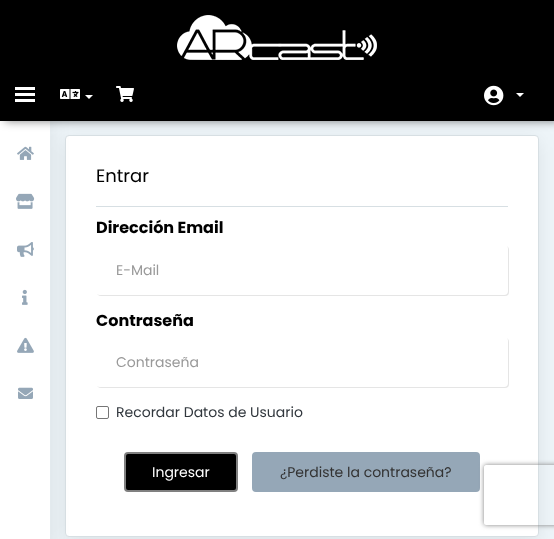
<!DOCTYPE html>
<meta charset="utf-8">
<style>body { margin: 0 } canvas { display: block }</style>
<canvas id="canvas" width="554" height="539"></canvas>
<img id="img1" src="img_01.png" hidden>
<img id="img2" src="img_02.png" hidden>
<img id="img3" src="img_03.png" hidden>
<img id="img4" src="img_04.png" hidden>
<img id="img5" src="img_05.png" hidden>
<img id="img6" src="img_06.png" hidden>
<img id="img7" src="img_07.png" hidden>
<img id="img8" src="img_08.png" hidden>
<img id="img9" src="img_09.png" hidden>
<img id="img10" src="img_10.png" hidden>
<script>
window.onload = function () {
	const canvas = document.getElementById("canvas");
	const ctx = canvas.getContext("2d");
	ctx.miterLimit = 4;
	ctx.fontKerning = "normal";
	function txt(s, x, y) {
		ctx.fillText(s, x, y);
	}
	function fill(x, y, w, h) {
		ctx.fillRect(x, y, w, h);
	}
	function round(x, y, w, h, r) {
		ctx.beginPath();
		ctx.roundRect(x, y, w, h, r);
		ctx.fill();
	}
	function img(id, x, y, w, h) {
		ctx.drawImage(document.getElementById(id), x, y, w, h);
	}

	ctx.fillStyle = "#EEF5F9";
	fill(0, 0, 554, 539);
	ctx.fillStyle = "rgba(0, 0, 0, 0.08)";
	ctx.filter = "blur(10px)";
	ctx.beginPath();
	ctx.roundRect(65, 140, 474, 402, 4);
	ctx.fill();
	ctx.filter = "none";
	ctx.fillStyle = "#FFFFFF";
	ctx.beginPath();
	ctx.roundRect(65.5, 135.5, 473, 401, 3.5);
	ctx.fill();
	ctx.strokeStyle = "#D7DFE3";
	ctx.stroke();
	ctx.fillStyle = "rgba(0, 0, 0, 0.08)";
	ctx.filter = "blur(10px)";
	ctx.beginPath();
	ctx.rect(1, 120, 50, 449);
	ctx.fill();
	ctx.filter = "none";
	ctx.fillStyle = "#FFFFFF";
	fill(0, 121, 50, 418);
	ctx.fillStyle = "rgba(0, 0, 0, 0.5)";
	ctx.filter = "blur(5px)";
	ctx.beginPath();
	ctx.rect(5, 0, 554, 121);
	ctx.fill();
	ctx.filter = "none";
	ctx.fillStyle = "#000000";
	fill(0, 0, 554, 121);
	img("img1", 177, 15, 200, 45);
	ctx.fillStyle = "#FFFFFF";
	fill(15, 87, 20, 3);
	fill(15, 93, 20, 3);
	fill(15, 99, 20, 3);
	img("img2", 60, 89, 20, 10);
	ctx.beginPath();
	ctx.moveTo(85, 95);
	ctx.lineTo(93, 95);
	ctx.lineTo(89, 99);
	ctx.closePath();
	ctx.fill();
	img("img3", 116, 86, 18, 16);
	img("img4", 484, 85, 20, 21);
	ctx.beginPath();
	ctx.moveTo(516, 93);
	ctx.lineTo(524, 93);
	ctx.lineTo(520, 97);
	ctx.closePath();
	ctx.fill();
	img("img5", 17, 146, 17, 14);
	img("img6", 16, 193, 19, 16);
	img("img7", 17, 242, 17, 15);
	img("img8", 22, 289, 6, 16);
	img("img9", 17, 337, 17, 16);
	img("img10", 18, 387, 15, 12);
	ctx.fillStyle = "#D7DFE3";
	fill(96, 206, 412, 1);
	ctx.fillStyle = "rgba(0, 0, 0, 0.1)";
	ctx.filter = "blur(0.5px)";
	ctx.beginPath();
	ctx.roundRect(97, 246, 412, 50, 4);
	ctx.fill();
	ctx.filter = "none";
	ctx.fillStyle = "#FFFFFF";
	round(96, 245, 412, 50, 4);
	ctx.fillStyle = "rgba(0, 0, 0, 0.1)";
	ctx.filter = "blur(0.5px)";
	ctx.beginPath();
	ctx.roundRect(97, 338, 412, 50, 4);
	ctx.fill();
	ctx.filter = "none";
	ctx.fillStyle = "#FFFFFF";
	round(96, 337, 412, 50, 4);
	ctx.beginPath();
	ctx.roundRect(96.5, 406.5, 12, 12, 1.5);
	ctx.strokeStyle = "#767676";
	ctx.stroke();
	ctx.fillStyle = "#000000";
	ctx.beginPath();
	ctx.roundRect(125, 453, 112, 38, 3);
	ctx.fill();
	ctx.strokeStyle = "#808080";
	ctx.lineWidth = 2;
	ctx.stroke();
	ctx.fillStyle = "#95A7B7";
	ctx.beginPath();
	ctx.roundRect(253, 453, 226, 38, 3);
	ctx.fill();
	ctx.strokeStyle = "#95A7B7";
	ctx.stroke();
	ctx.save();
	ctx.beginPath();
	ctx.moveTo(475, 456);
	ctx.lineTo(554, 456);
	ctx.lineTo(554, 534);
	ctx.lineTo(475, 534);
	ctx.closePath();
	ctx.moveTo(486, 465);
	ctx.lineTo(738, 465);
	ctx.bezierCurveTo(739, 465, 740, 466, 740, 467);
	ctx.lineTo(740, 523);
	ctx.bezierCurveTo(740, 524, 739, 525, 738, 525);
	ctx.lineTo(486, 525);
	ctx.bezierCurveTo(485, 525, 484, 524, 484, 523);
	ctx.lineTo(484, 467);
	ctx.bezierCurveTo(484, 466, 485, 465, 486, 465);
	ctx.closePath();
	ctx.clip("evenodd");
	ctx.fillStyle = "#808080";
	ctx.filter = "blur(2.5px)";
	ctx.beginPath();
	ctx.roundRect(484, 465, 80, 60, 2);
	ctx.fill();
	ctx.filter = "none";
	ctx.restore();
	ctx.font = "18px Poppins";
	ctx.fillStyle = "#000000";
	txt("Entrar", 96, 182);
	ctx.font = "bold 16px Poppins";
	txt("Dirección Email", 96, 233);
	ctx.font = "14px Poppins";
	ctx.fillStyle = "#999999";
	txt("E-Mail", 116, 275);
	ctx.font = "bold 16px Poppins";
	ctx.fillStyle = "#000000";
	txt("Contraseña", 96, 326);
	ctx.font = "14px Poppins";
	ctx.fillStyle = "#999999";
	txt("Contraseña", 116, 367);
	ctx.fillStyle = "#31373D";
	txt("Recordar Datos de Usuario", 116, 417);
	ctx.fillStyle = "#FFFFFF";
	txt("Ingresar", 152, 477);
	ctx.fillStyle = "#333333";
	txt("¿Perdiste la contraseña?", 280, 477);
};
</script>
